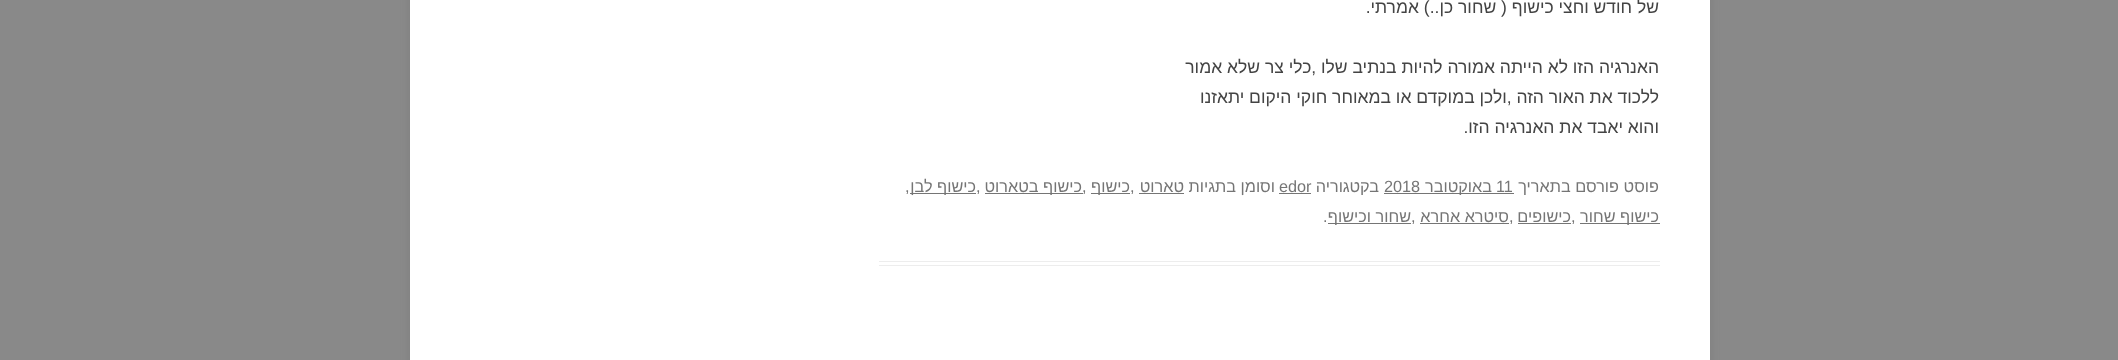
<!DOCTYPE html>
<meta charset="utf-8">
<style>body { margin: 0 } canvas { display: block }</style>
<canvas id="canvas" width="2118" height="360"></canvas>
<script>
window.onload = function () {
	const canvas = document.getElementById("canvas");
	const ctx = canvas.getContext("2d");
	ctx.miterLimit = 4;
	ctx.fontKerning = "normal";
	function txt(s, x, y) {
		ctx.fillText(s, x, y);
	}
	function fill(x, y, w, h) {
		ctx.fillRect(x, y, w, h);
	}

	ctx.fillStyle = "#898989";
	fill(0, 0, 2118, 360);
	ctx.fillStyle = "rgba(100, 100, 100, 0.3)";
	ctx.filter = "blur(4px)";
	ctx.beginPath();
	ctx.rect(410, -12, 1300, 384);
	ctx.fill();
	ctx.filter = "none";
	ctx.fillStyle = "#FFFFFF";
	fill(410, 0, 1300, 360);
	ctx.fillStyle = "#EDEDED";
	fill(879, 261, 781, 1);
	fill(879, 265, 781, 1);
	ctx.fillStyle = "#757575";
	fill(1384, 193, 130, 1);
	fill(1279, 193, 32, 1);
	fill(1139, 193, 45, 1);
	fill(1091, 193, 39, 1);
	fill(985, 193, 98, 1);
	fill(910, 193, 66, 1);
	fill(1580, 223, 80, 1);
	fill(1518, 223, 53, 1);
	fill(1420, 223, 89, 1);
	fill(1328, 223, 83, 1);
	ctx.direction = "rtl";
	ctx.font = "17.5px Liberation Sans";
	ctx.fillStyle = "#444444";
	txt("של חודש וחצי כישוף ( שחור כן..) אמרתי.", 1659, 13);
	txt("האנרגיה הזו לא הייתה אמורה להיות בנתיב שלו ,כלי צר שלא אמור", 1659, 73);
	txt("ללכוד את האור הזה ,ולכן במוקדם או במאוחר חוקי היקום יתאזנו", 1659, 103);
	txt("והוא יאבד את האנרגיה הזו.", 1659, 133);
	ctx.font = "16.25px Liberation Sans";
	ctx.fillStyle = "#757575";
	txt("פוסט", 1659, 192);
	txt("פורסם בתאריך", 1619, 192);
	ctx.direction = "ltr";
	txt("11", 1496, 192);
	ctx.direction = "rtl";
	txt("באוקטובר", 1492, 192);
	ctx.direction = "ltr";
	txt("2018", 1384, 192);
	ctx.direction = "rtl";
	txt("בקטגוריה", 1379, 192);
	ctx.direction = "ltr";
	txt("edor", 1279, 192);
	ctx.direction = "rtl";
	txt("וסומן בתגיות", 1275, 192);
	txt("טארוט", 1184, 192);
	ctx.direction = "ltr";
	txt(",", 1130, 192);
	ctx.direction = "rtl";
	txt("כישוף", 1130, 192);
	ctx.direction = "ltr";
	txt(",", 1082, 192);
	ctx.direction = "rtl";
	txt("כישוף בטארוט", 1082, 192);
	ctx.direction = "ltr";
	txt(",", 976, 192);
	ctx.direction = "rtl";
	txt("כישוף לבן", 976, 192);
	ctx.direction = "ltr";
	txt(",", 905, 192);
	ctx.direction = "rtl";
	txt("כישוף שחור", 1659, 222);
	ctx.direction = "ltr";
	txt(",", 1571, 222);
	ctx.direction = "rtl";
	txt("כישופים", 1571, 222);
	ctx.direction = "ltr";
	txt(",", 1509, 222);
	ctx.direction = "rtl";
	txt("סיטרא אחרא", 1509, 222);
	ctx.direction = "ltr";
	txt(",", 1411, 222);
	ctx.direction = "rtl";
	txt("שחור וכישוף", 1411, 222);
	ctx.direction = "ltr";
	txt(".", 1323, 222);
};
</script>
